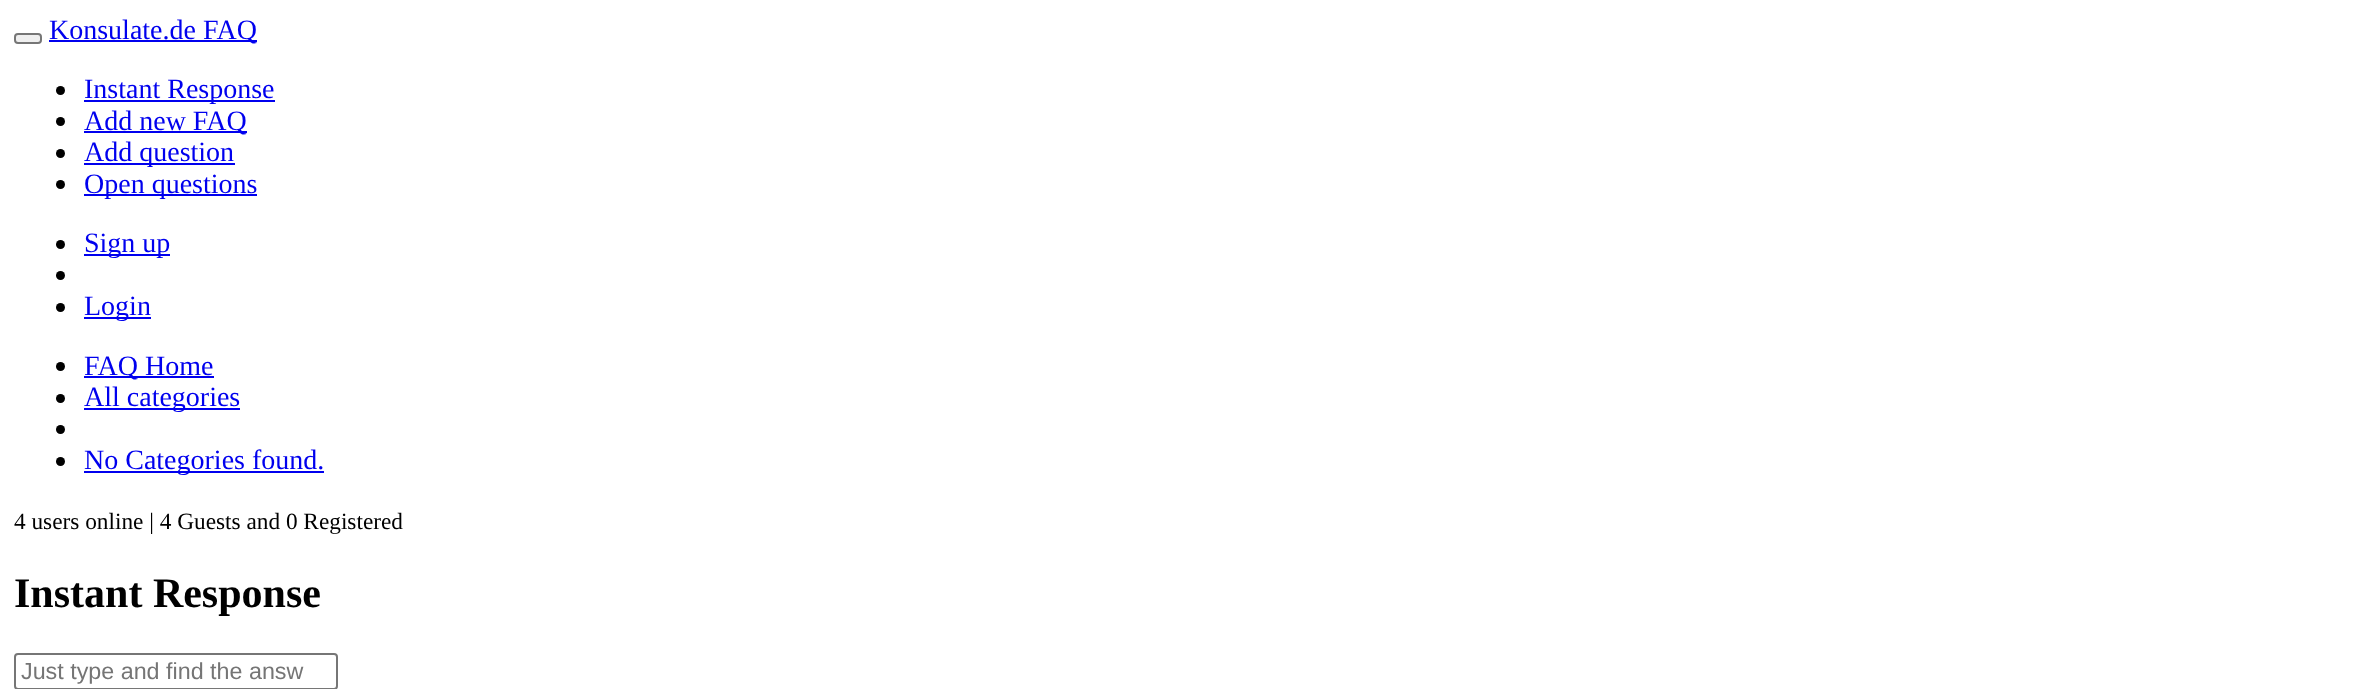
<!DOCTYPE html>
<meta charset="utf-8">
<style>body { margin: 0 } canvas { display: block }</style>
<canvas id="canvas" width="2363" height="689"></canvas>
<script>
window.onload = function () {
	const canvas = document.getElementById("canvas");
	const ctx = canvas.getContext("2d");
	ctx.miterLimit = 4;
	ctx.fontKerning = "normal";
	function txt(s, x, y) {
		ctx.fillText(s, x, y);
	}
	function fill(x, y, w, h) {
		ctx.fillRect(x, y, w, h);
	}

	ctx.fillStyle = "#FFFFFF";
	fill(0, 0, 2363, 689);
	ctx.fillStyle = "#EFEFEF";
	ctx.beginPath();
	ctx.roundRect(15, 34, 26, 9, 3);
	ctx.fill();
	ctx.strokeStyle = "#767676";
	ctx.lineWidth = 2;
	ctx.stroke();
	ctx.fillStyle = "#0000EE";
	fill(49, 40, 208, 2);
	ctx.fillStyle = "#000000";
	ctx.beginPath();
	ctx.arc(60.5, 90.5, 4.5, 0, Math.PI * 2);
	ctx.fill();
	ctx.fillStyle = "#0000EE";
	fill(84, 100, 191, 2);
	ctx.fillStyle = "#000000";
	ctx.beginPath();
	ctx.arc(60.5, 121.5, 4.5, 0, Math.PI * 2);
	ctx.fill();
	ctx.fillStyle = "#0000EE";
	fill(84, 131, 163, 2);
	ctx.fillStyle = "#000000";
	ctx.beginPath();
	ctx.arc(60.5, 153.5, 4.5, 0, Math.PI * 2);
	ctx.fill();
	ctx.fillStyle = "#0000EE";
	fill(84, 163, 151, 2);
	ctx.fillStyle = "#000000";
	ctx.beginPath();
	ctx.arc(60.5, 184.5, 4.5, 0, Math.PI * 2);
	ctx.fill();
	ctx.fillStyle = "#0000EE";
	fill(84, 194, 173, 2);
	ctx.fillStyle = "#000000";
	ctx.beginPath();
	ctx.arc(60.5, 244.5, 4.5, 0, Math.PI * 2);
	ctx.fill();
	ctx.fillStyle = "#0000EE";
	fill(84, 254, 86, 2);
	ctx.fillStyle = "#000000";
	ctx.beginPath();
	ctx.arc(60.5, 275.5, 4.5, 0, Math.PI * 2);
	ctx.fill();
	ctx.beginPath();
	ctx.arc(60.5, 307.5, 4.5, 0, Math.PI * 2);
	ctx.fill();
	ctx.fillStyle = "#0000EE";
	fill(84, 317, 67, 2);
	ctx.fillStyle = "#000000";
	ctx.beginPath();
	ctx.arc(60.5, 366.5, 4.5, 0, Math.PI * 2);
	ctx.fill();
	ctx.fillStyle = "#0000EE";
	fill(84, 376, 130, 2);
	ctx.fillStyle = "#000000";
	ctx.beginPath();
	ctx.arc(60.5, 398.5, 4.5, 0, Math.PI * 2);
	ctx.fill();
	ctx.fillStyle = "#0000EE";
	fill(84, 408, 156, 2);
	ctx.fillStyle = "#000000";
	ctx.beginPath();
	ctx.arc(60.5, 429.5, 4.5, 0, Math.PI * 2);
	ctx.fill();
	ctx.beginPath();
	ctx.arc(60.5, 461.5, 4.5, 0, Math.PI * 2);
	ctx.fill();
	ctx.fillStyle = "#0000EE";
	fill(84, 471, 240, 2);
	ctx.beginPath();
	ctx.roundRect(15, 654, 322, 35, 3);
	ctx.stroke();
	ctx.font = "28px Liberation Serif";
	txt("Konsulate.de FAQ", 49, 39);
	txt("Instant Response", 84, 98);
	txt("Add new FAQ", 84, 130);
	txt("Add question", 84, 161);
	txt("Open questions", 84, 193);
	txt("Sign up", 84, 252);
	txt("Login", 84, 315);
	txt("FAQ Home", 84, 375);
	txt("All categories", 84, 406);
	txt("No Categories found.", 84, 469);
	ctx.font = "23.3px Liberation Serif";
	ctx.fillStyle = "#000000";
	txt("4 users online | 4 Guests and 0 Registered", 14, 529);
	ctx.font = "bold 42px Liberation Serif";
	txt("Instant Response", 14, 607);
	ctx.font = "23.3px Liberation Sans";
	ctx.fillStyle = "#757575";
	txt("Just type and find the answ", 21, 679);
};
</script>
